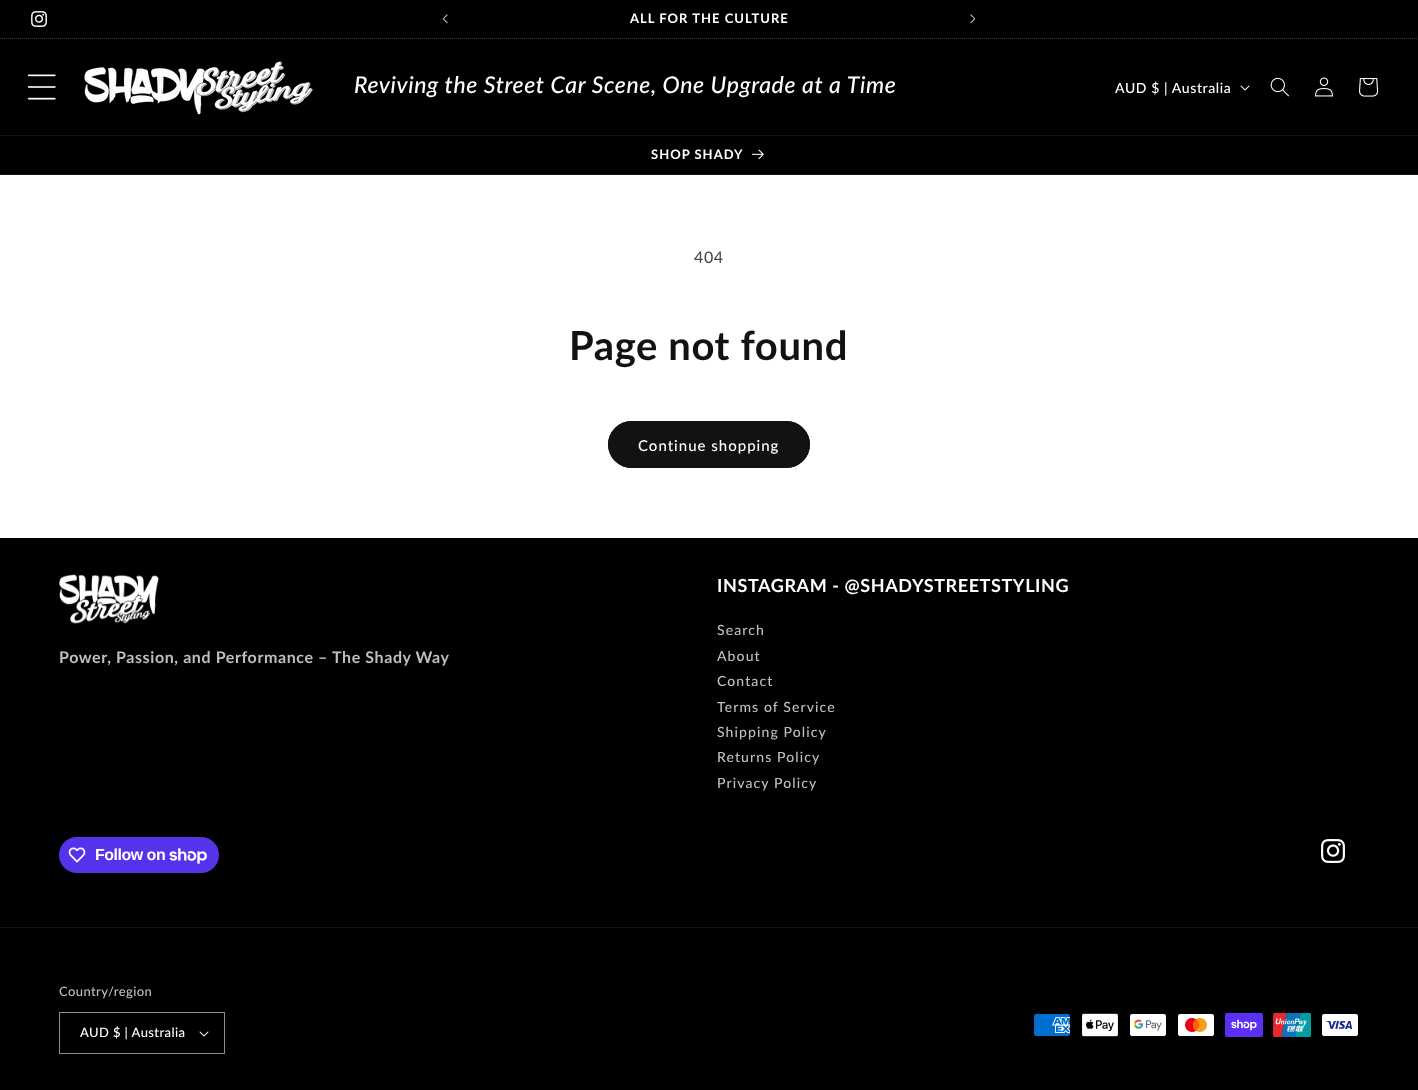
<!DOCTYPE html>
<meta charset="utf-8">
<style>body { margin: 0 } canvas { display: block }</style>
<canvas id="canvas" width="1418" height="1090"></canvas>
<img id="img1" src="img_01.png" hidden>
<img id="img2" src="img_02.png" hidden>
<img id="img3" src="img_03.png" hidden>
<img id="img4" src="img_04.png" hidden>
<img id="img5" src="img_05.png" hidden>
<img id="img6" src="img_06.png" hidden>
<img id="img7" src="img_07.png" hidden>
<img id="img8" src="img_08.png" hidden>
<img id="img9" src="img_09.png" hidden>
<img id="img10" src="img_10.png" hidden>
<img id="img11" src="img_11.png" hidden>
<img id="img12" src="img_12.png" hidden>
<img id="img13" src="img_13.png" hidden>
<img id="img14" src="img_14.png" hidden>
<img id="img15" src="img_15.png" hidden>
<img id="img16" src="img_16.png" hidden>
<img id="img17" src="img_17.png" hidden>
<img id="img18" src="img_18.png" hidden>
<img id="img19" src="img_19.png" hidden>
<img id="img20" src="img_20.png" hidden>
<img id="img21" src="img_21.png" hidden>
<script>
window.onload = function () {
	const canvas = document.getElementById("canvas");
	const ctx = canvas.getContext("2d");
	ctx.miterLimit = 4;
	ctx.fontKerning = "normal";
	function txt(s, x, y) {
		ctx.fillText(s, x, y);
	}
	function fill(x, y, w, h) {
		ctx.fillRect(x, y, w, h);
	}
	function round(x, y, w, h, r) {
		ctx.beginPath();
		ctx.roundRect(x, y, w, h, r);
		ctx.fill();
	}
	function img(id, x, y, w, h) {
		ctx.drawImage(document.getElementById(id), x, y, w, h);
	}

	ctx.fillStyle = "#FFFFFF";
	fill(0, 0, 1418, 1090);
	ctx.fillStyle = "#000000";
	fill(0, 0, 1418, 135);
	ctx.beginPath();
	ctx.moveTo(0, 38.5);
	ctx.lineTo(1418, 38.5);
	ctx.strokeStyle = "#383838";
	ctx.setLineDash([1, 1]);
	ctx.stroke();
	img("img1", 31, 11, 16, 16);
	img("img2", 442, 14, 6, 10);
	img("img3", 970, 14, 6, 10);
	ctx.fillStyle = "#141414";
	fill(0, 135, 1418, 1);
	img("img4", 27, 74, 29, 26);
	img("img5", 84, 61, 229, 54);
	img("img6", 1240, 85, 10, 6);
	img("img7", 1270, 77, 19, 20);
	img("img8", 1315, 77, 18, 20);
	img("img9", 1359, 78, 20, 19);
	ctx.fillStyle = "#000000";
	fill(0, 136, 1418, 38);
	ctx.fillStyle = "#141414";
	fill(0, 174, 1418, 1);
	img("img10", 752, 149, 12, 11);
	ctx.fillStyle = "#121212";
	round(608, 421, 202, 47, 23.5);
	ctx.beginPath();
	ctx.roundRect(608.5, 421.5, 201, 46, 23);
	ctx.strokeStyle = "#121212";
	ctx.setLineDash([]);
	ctx.stroke();
	ctx.fillStyle = "#000000";
	fill(0, 538, 1418, 552);
	img("img11", 59, 574, 100, 50);
	ctx.fillStyle = "#5433EB";
	round(59, 837, 160, 36, 18);
	img("img12", 68, 847, 18, 16);
	img("img13", 169, 848, 38, 16);
	img("img14", 1321, 839, 24, 24);
	ctx.fillStyle = "#141414";
	fill(0, 927, 1418, 1);
	img("img6", 199, 1031, 10, 6);
	ctx.strokeStyle = "#8C8C8C";
	ctx.strokeRect(59.5, 1012.5, 165, 41);
	img("img15", 1034, 1014, 36, 22);
	img("img16", 1082, 1013, 36, 24);
	img("img17", 1130, 1014, 36, 22);
	img("img18", 1178, 1014, 36, 22);
	img("img19", 1225, 1013, 38, 24);
	img("img20", 1273, 1013, 38, 24);
	img("img21", 1322, 1014, 36, 22);
	ctx.letterSpacing = "1px";
	ctx.font = "bold 13px Lato";
	ctx.fillStyle = "#FFFFFF";
	txt("ALL FOR THE CULTURE", 630, 23);
	ctx.letterSpacing = "0.6px";
	ctx.font = "italic 500 23px Lato";
	txt("Reviving the Street Car Scene, One Upgrade at a Time", 354, 93);
	ctx.font = "500 14px Lato";
	txt("AUD $ | Australia", 1115, 93);
	ctx.letterSpacing = "1px";
	ctx.font = "bold 13px Lato";
	txt("SHOP SHADY", 651, 159);
	ctx.letterSpacing = "0.6px";
	ctx.font = "500 16px Lato";
	ctx.fillStyle = "#4D4D4D";
	txt("404", 694, 263);
	ctx.font = "bold 40px Lato";
	ctx.fillStyle = "#121212";
	txt("Page not found", 569, 360);
	ctx.letterSpacing = "1px";
	ctx.font = "500 15px Lato";
	ctx.fillStyle = "#FFFFFF";
	txt("Continue shopping", 638, 451);
	ctx.letterSpacing = "0.6px";
	ctx.font = "bold 16px Lato";
	ctx.fillStyle = "#BFBFBF";
	txt("Power, Passion, and Performance – The Shady Way", 59, 663);
	ctx.font = "bold 18px Lato";
	ctx.fillStyle = "#FFFFFF";
	txt("INSTAGRAM - @SHADYSTREETSTYLING", 717, 592);
	ctx.letterSpacing = "1.1px";
	ctx.font = "500 14px Lato";
	ctx.fillStyle = "#BFBFBF";
	txt("Search", 717, 635);
	txt("About", 717, 661);
	txt("Contact", 717, 686);
	txt("Terms of Service", 717, 712);
	txt("Shipping Policy", 717, 737);
	txt("Returns Policy", 717, 762);
	txt("Privacy Policy", 717, 788);
	ctx.letterSpacing = "-0.5px";
	ctx.font = "bold 16px Liberation Sans";
	ctx.fillStyle = "#FFFFFF";
	txt("Follow on", 95, 860);
	ctx.letterSpacing = "0.4px";
	ctx.font = "500 13px Lato";
	ctx.fillStyle = "#BFBFBF";
	txt("Country/region", 59, 996);
	ctx.fillStyle = "#FFFFFF";
	txt("AUD $ | Australia", 80, 1037);
};
</script>
